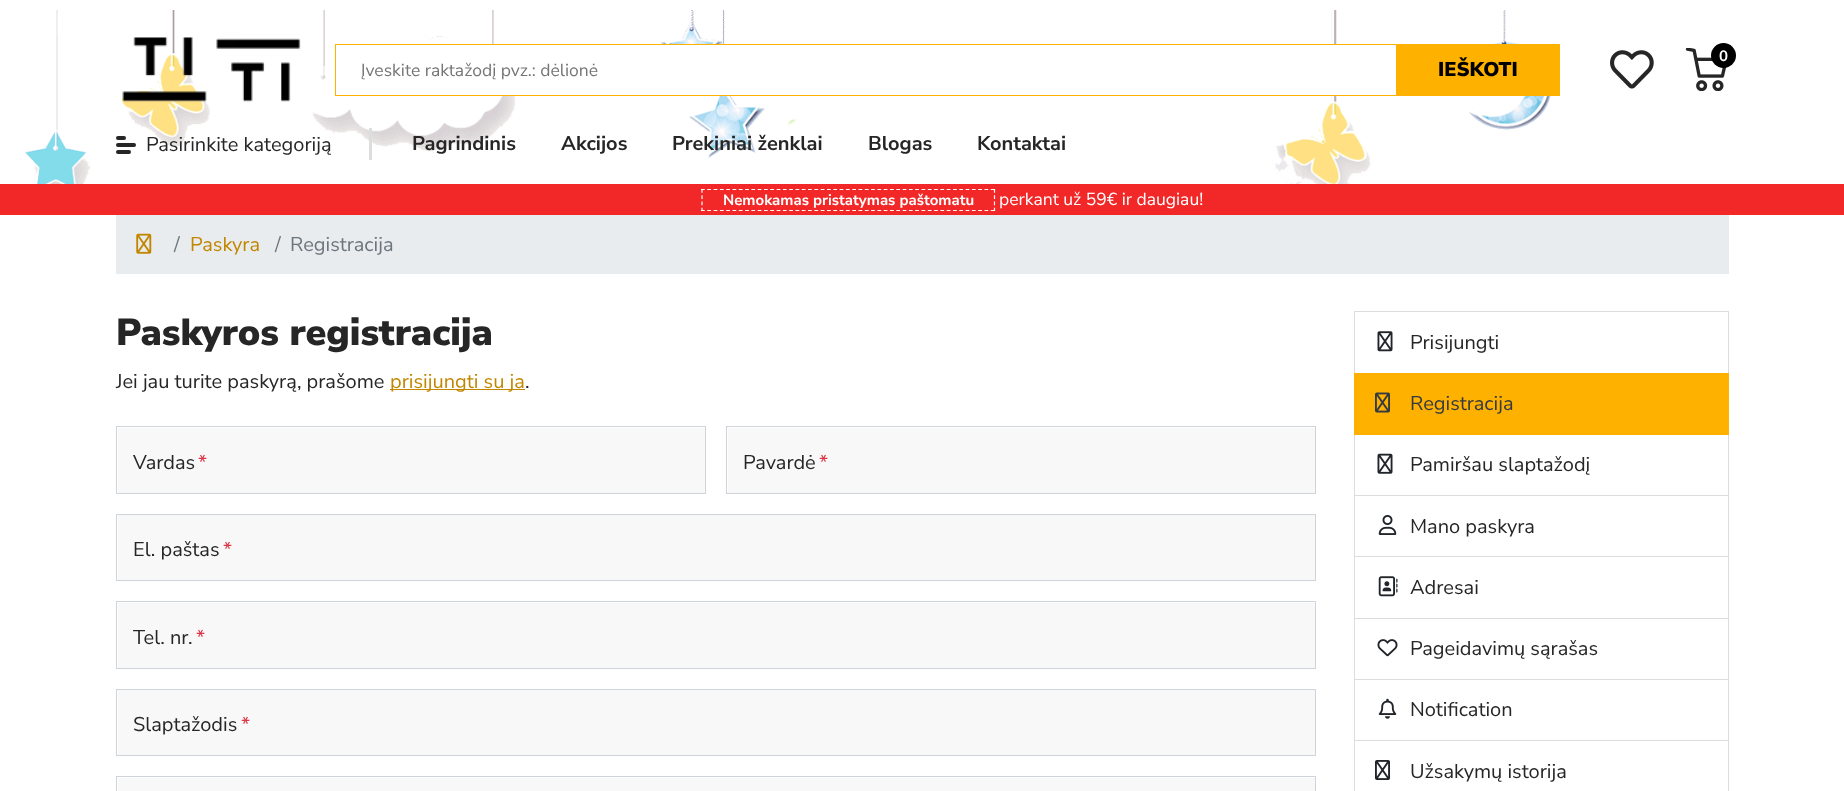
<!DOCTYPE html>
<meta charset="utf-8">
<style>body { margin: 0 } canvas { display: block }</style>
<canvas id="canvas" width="1844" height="791"></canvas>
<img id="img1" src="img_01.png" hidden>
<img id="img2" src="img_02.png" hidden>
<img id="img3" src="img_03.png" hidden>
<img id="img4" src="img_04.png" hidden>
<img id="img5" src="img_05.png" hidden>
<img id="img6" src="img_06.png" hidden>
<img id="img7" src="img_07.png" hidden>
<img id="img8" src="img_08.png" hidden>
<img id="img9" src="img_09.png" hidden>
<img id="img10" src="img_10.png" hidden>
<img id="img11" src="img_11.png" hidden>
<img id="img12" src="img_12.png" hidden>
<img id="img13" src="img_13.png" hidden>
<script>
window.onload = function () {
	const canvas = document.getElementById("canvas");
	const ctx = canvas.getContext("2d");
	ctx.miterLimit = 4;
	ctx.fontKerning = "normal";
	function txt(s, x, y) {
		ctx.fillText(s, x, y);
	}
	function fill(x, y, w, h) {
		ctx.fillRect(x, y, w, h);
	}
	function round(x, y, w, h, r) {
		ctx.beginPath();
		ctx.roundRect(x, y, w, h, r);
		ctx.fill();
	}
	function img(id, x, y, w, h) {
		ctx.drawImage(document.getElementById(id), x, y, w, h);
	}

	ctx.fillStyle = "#FFFFFF";
	fill(0, 0, 1844, 791);
	img("img1", 25, 10, 1526, 174);
	img("img2", 122, 37, 179, 65);
	ctx.strokeStyle = "#FFB100";
	ctx.strokeRect(335.5, 44.5, 1224, 51);
	fill(464, 45, 873, 50);
	ctx.fillStyle = "#FFB100";
	fill(1396, 45, 163, 50);
	img("img3", 1610, 50, 44, 39);
	img("img4", 1685, 48, 42, 43);
	ctx.fillStyle = "#000000";
	ctx.beginPath();
	ctx.arc(1723.5, 55.5, 12.5, 0, Math.PI * 2);
	ctx.fill();
	ctx.fillStyle = "#DDDDDD";
	fill(369, 128, 3, 32);
	ctx.fillStyle = "#262626";
	round(116, 136, 10, 4, 2);
	round(116, 143, 20, 4, 2);
	round(116, 150, 15, 4, 2);
	ctx.fillStyle = "#F22828";
	fill(0, 184, 1844, 31);
	ctx.beginPath();
	ctx.moveTo(701, 189.5);
	ctx.lineTo(995, 189.5);
	ctx.strokeStyle = "#FFFFFF";
	ctx.lineWidth = 1.2;
	ctx.setLineDash([3.75, 2.55]);
	ctx.stroke();
	ctx.beginPath();
	ctx.moveTo(994.5, 189);
	ctx.lineTo(994.5, 211);
	ctx.setLineDash([3.75, 2.5]);
	ctx.stroke();
	ctx.beginPath();
	ctx.moveTo(701, 210.5);
	ctx.lineTo(995, 210.5);
	ctx.setLineDash([3.75, 2.55]);
	ctx.stroke();
	ctx.beginPath();
	ctx.moveTo(702, 189);
	ctx.lineTo(702, 211);
	ctx.setLineDash([3.75, 2.5]);
	ctx.stroke();
	ctx.fillStyle = "#E9ECEF";
	fill(116, 215, 1613, 59);
	img("img5", 136, 233, 16, 21);
	ctx.fillStyle = "#C28700";
	fill(390, 389, 135, 1);
	ctx.fillStyle = "#F8F8F8";
	fill(118, 428, 587, 65);
	ctx.strokeStyle = "#CED4DA";
	ctx.lineWidth = 1;
	ctx.setLineDash([]);
	ctx.strokeRect(116.5, 426.5, 589, 67);
	fill(728, 428, 587, 65);
	ctx.strokeRect(726.5, 426.5, 589, 67);
	fill(118, 515, 1197, 65);
	ctx.strokeRect(116.5, 514.5, 1199, 66);
	fill(118, 603, 1197, 65);
	ctx.strokeRect(116.5, 601.5, 1199, 67);
	fill(118, 690, 1197, 65);
	ctx.strokeRect(116.5, 689.5, 1199, 66);
	fill(118, 778, 1197, 13);
	ctx.strokeRect(116.5, 776.5, 1199, 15);
	ctx.strokeStyle = "#DDDDDD";
	ctx.strokeRect(1354.5, 311.5, 374, 62);
	img("img6", 1377, 331, 16, 21);
	ctx.fillStyle = "#FFB100";
	fill(1354, 373, 375, 62);
	img("img7", 1375, 392, 15, 21);
	ctx.fillStyle = "#DDDDDD";
	fill(1728, 435, 1, 356);
	fill(1354, 495, 375, 1);
	fill(1354, 435, 1, 61);
	img("img8", 1377, 453, 16, 21);
	fill(1354, 556, 375, 1);
	fill(1354, 496, 1, 62);
	img("img9", 1378, 515, 19, 20);
	fill(1354, 618, 375, 1);
	fill(1354, 558, 1, 61);
	img("img10", 1378, 576, 20, 21);
	fill(1354, 679, 375, 1);
	fill(1354, 619, 1, 61);
	img("img11", 1377, 639, 21, 18);
	fill(1354, 740, 375, 1);
	fill(1354, 680, 1, 111);
	img("img12", 1378, 698, 19, 21);
	img("img13", 1375, 760, 15, 20);
	ctx.font = "17.5px Nunito Sans";
	ctx.fillStyle = "#757575";
	txt("Įveskite raktažodį pvz.: dėlionė", 361, 76);
	ctx.font = "900 20px Nunito Sans";
	ctx.fillStyle = "#000000";
	txt("IEŠKOTI", 1438, 76);
	ctx.font = "bold 15px Nunito Sans";
	ctx.fillStyle = "#FFFFFF";
	txt("0", 1719, 61);
	ctx.font = "20px Nunito Sans";
	ctx.fillStyle = "#262626";
	txt("Pasirinkite kategoriją", 146, 151);
	ctx.font = "bold 20px Nunito Sans";
	txt("Pagrindinis", 412, 150);
	txt("Akcijos", 561, 150);
	txt("Prekiniai ženklai", 672, 150);
	txt("Blogas", 868, 150);
	txt("Kontaktai", 977, 150);
	ctx.font = "bold 15px Nunito Sans";
	ctx.fillStyle = "#FFFFFF";
	txt("Nemokamas pristatymas paštomatu", 723, 205);
	ctx.font = "17.5px Nunito Sans";
	txt("perkant už 59€ ir daugiau!", 999, 205);
	ctx.font = "20px Nunito Sans";
	ctx.fillStyle = "#6C757D";
	txt("/", 174, 251);
	ctx.fillStyle = "#C28700";
	txt("Paskyra", 190, 251);
	ctx.fillStyle = "#6C757D";
	txt("/", 275, 251);
	txt("Registracija", 290, 251);
	ctx.font = "900 37.5px Nunito Sans";
	ctx.fillStyle = "#262626";
	txt("Paskyros registracija", 116, 345);
	ctx.font = "20px Nunito Sans";
	txt("Jei jau turite paskyrą, prašome", 116, 388);
	ctx.fillStyle = "#C28700";
	txt("prisijungti su ja", 390, 388);
	ctx.fillStyle = "#262626";
	txt(".", 525, 388);
	txt("Vardas", 133, 469);
	ctx.fillStyle = "#DC3545";
	txt("*", 198, 469);
	ctx.fillStyle = "#262626";
	txt("Pavardė", 743, 469);
	ctx.fillStyle = "#DC3545";
	txt("*", 819, 469);
	ctx.fillStyle = "#262626";
	txt("El. paštas", 133, 556);
	ctx.fillStyle = "#DC3545";
	txt("*", 223, 556);
	ctx.fillStyle = "#262626";
	txt("Tel. nr.", 133, 644);
	ctx.fillStyle = "#DC3545";
	txt("*", 196, 644);
	ctx.fillStyle = "#262626";
	txt("Slaptažodis", 133, 731);
	ctx.fillStyle = "#DC3545";
	txt("*", 241, 731);
	ctx.fillStyle = "#262626";
	txt("Prisijungti", 1410, 349);
	ctx.fillStyle = "#343A40";
	txt("Registracija", 1410, 410);
	ctx.fillStyle = "#262626";
	txt("Pamiršau slaptažodį", 1410, 471);
	txt("Mano paskyra", 1410, 533);
	txt("Adresai", 1410, 594);
	txt("Pageidavimų sąrašas", 1410, 655);
	txt("Notification", 1410, 716);
	txt("Užsakymų istorija", 1410, 778);
};
</script>
